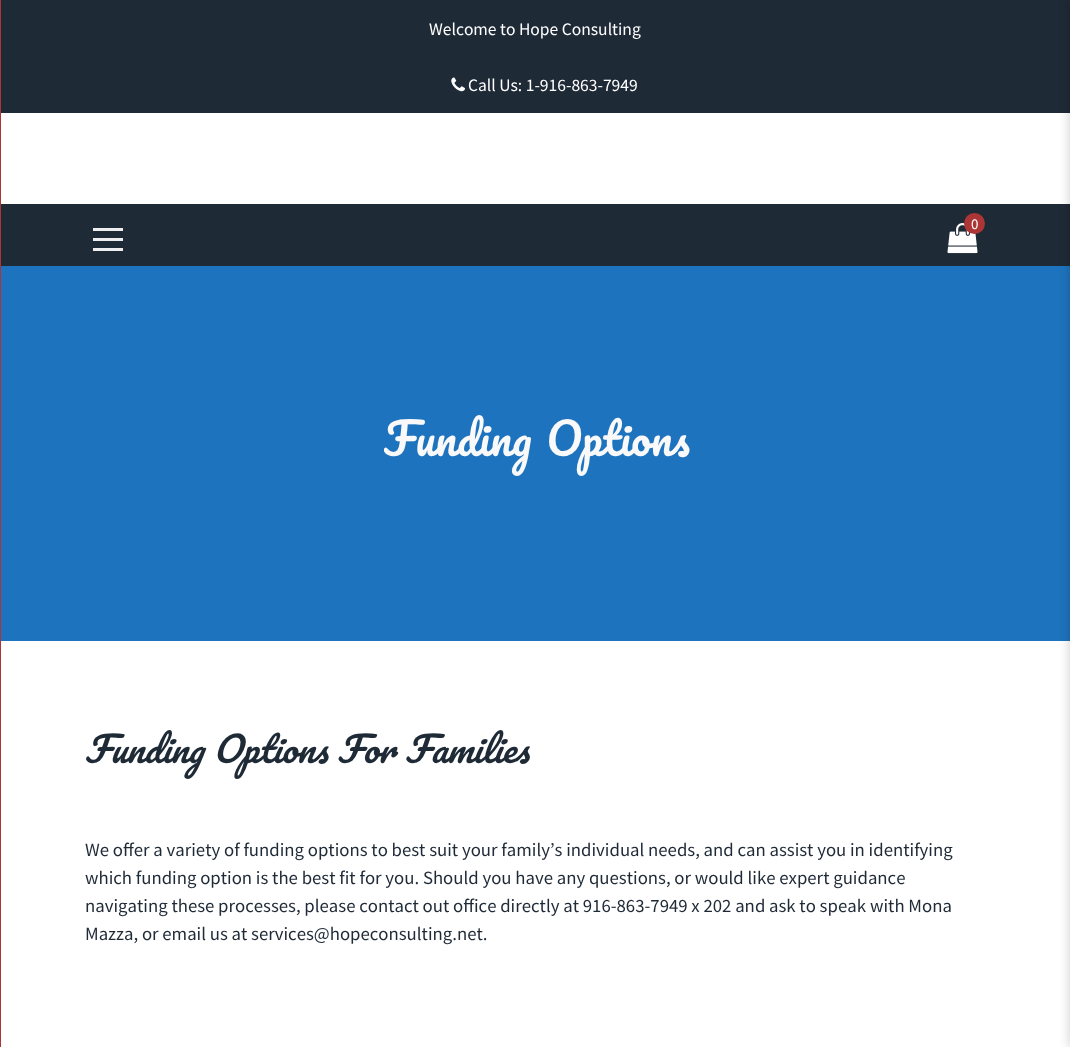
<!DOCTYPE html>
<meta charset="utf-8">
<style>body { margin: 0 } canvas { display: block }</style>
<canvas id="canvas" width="1070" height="1047"></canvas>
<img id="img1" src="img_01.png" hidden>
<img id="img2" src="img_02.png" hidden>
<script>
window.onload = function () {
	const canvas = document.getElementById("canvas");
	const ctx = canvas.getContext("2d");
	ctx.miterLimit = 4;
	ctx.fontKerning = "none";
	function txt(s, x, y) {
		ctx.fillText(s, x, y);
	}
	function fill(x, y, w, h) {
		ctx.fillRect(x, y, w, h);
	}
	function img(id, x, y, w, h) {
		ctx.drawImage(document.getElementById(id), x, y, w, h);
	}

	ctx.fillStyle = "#FFFFFF";
	fill(0, 0, 1070, 1047);
	ctx.fillStyle = "#1F2A37";
	fill(1, 0, 1069, 113);
	img("img1", 451, 77, 14, 15);
	fill(1, 204, 1069, 62);
	ctx.fillStyle = "#AD3535";
	fill(0, 0, 1, 1047);
	img("img2", 947, 223, 31, 31);
	ctx.beginPath();
	ctx.arc(974.5, 223.5, 10.5, 0, Math.PI * 2);
	ctx.fill();
	ctx.fillStyle = "#EEEEEE";
	fill(93, 228, 30, 3);
	fill(93, 238, 30, 3);
	fill(93, 248, 30, 3);
	ctx.fillStyle = "#1E73BE";
	fill(1, 266, 1069, 375);
	ctx.fillStyle = "rgba(0, 0, 0, 0.2)";
	ctx.filter = "blur(6px)";
	ctx.beginPath();
	ctx.rect(1070, 0, 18, 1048);
	ctx.fill();
	ctx.filter = "none";
	ctx.font = "17.5px Source Sans Pro";
	ctx.fillStyle = "#FFFFFF";
	txt("Welcome to Hope Consulting", 429, 35);
	txt("Call Us: 1-916-863-7949", 468, 91);
	ctx.font = "15px Source Sans Pro";
	txt("0", 971, 229);
	ctx.wordSpacing = "3px";
	ctx.font = "43.75px Pacifico";
	ctx.fillStyle = "#F9F9F9";
	txt("Funding Options", 384, 456);
	ctx.wordSpacing = "0.5px";
	ctx.font = "italic 35px Pacifico";
	ctx.fillStyle = "#1F2A37";
	txt("Funding Options For Families", 85, 763);
	ctx.wordSpacing = "0px";
	ctx.font = "18.75px Source Sans Pro";
	txt("We offer a variety of funding options to best suit your family’s individual needs, and can assist you", 85, 856);
	txt("in identifying", 850, 856);
	txt("which funding option is the best fit for you. Should you have any questions, or would like expert guidance", 85, 884);
	txt("navigating these processes, please contact out office directly at 916-863-7949 x 202 and ask to speak", 85, 912);
	txt("with Mona", 870, 912);
	txt("Mazza, or email us at services@hopeconsulting.net.", 85, 940);
};
</script>
